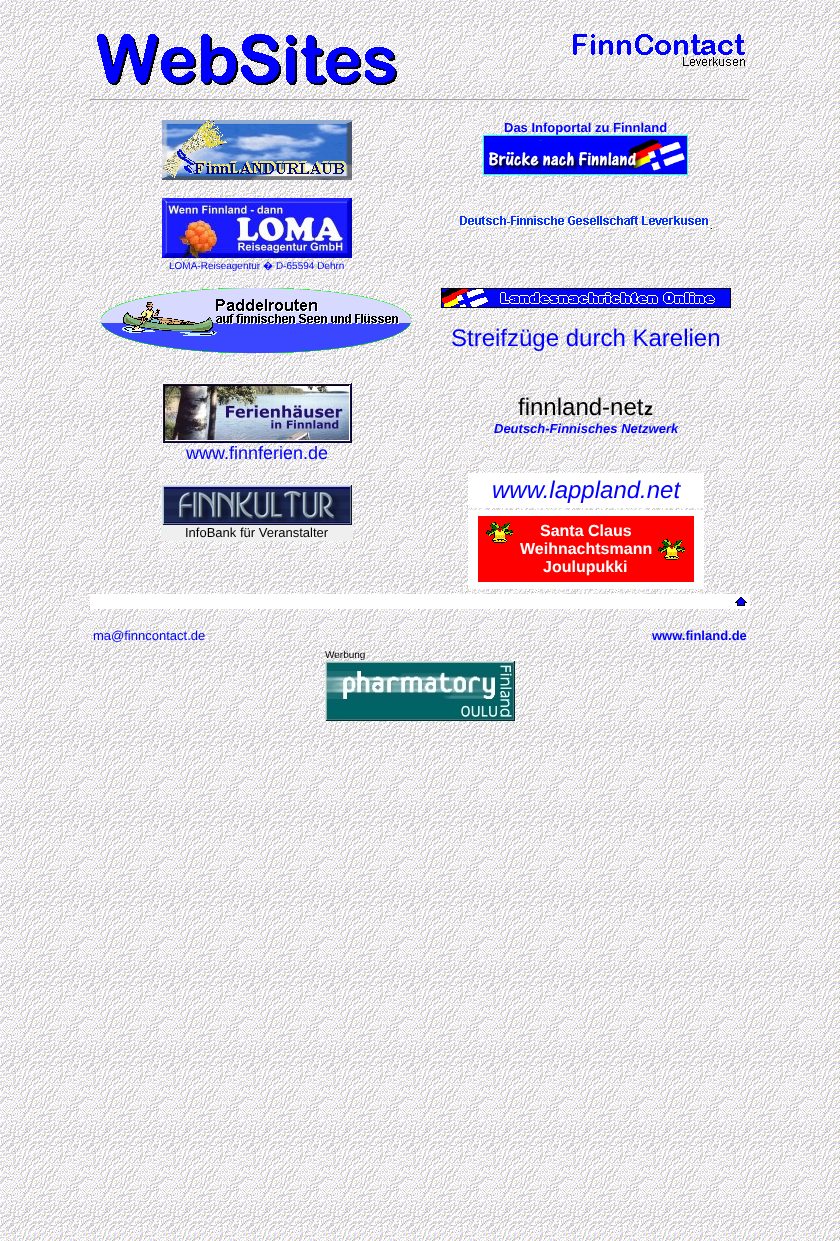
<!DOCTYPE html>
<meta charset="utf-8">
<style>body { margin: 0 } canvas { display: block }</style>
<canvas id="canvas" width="840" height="1241"></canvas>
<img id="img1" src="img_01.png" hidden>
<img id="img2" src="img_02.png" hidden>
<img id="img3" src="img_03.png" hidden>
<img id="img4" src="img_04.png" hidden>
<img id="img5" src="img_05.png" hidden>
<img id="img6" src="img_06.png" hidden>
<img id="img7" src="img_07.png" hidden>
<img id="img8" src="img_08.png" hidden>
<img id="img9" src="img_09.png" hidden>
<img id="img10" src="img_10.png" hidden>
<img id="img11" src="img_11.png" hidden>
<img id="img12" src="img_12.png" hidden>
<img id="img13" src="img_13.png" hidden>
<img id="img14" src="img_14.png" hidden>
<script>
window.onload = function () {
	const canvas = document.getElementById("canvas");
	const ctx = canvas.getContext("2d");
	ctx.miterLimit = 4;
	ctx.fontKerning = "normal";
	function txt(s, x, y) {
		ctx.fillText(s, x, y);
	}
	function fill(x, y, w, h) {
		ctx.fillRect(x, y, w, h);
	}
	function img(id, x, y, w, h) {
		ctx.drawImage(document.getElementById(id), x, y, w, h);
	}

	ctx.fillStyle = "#FFFFFF";
	fill(0, 0, 840, 1241);
	img("img1", 0, 0, 840, 1241);
	img("img2", 97, 34, 300, 51);
	img("img3", 573, 34, 172, 32);
	ctx.fillStyle = "#9F9F9F";
	fill(90, 99, 660, 1);
	ctx.fillStyle = "#EEEEEE";
	fill(749, 99, 1, 2);
	fill(90, 100, 660, 1);
	ctx.fillStyle = "#9F9F9F";
	fill(90, 99, 1, 2);
	img("img4", 483, 135, 205, 40);
	img("img5", 460, 216, 252, 13);
	img("img6", 162, 120, 190, 60);
	img("img7", 162, 198, 190, 60);
	img("img8", 101, 288, 310, 65);
	img("img9", 441, 288, 290, 20);
	img("img10", 162, 383, 190, 60);
	ctx.fillStyle = "#EFEFEF";
	fill(161, 484, 192, 57);
	img("img11", 162, 485, 190, 40);
	ctx.fillStyle = "#FFFFFF";
	fill(468, 473, 236, 35);
	fill(468, 510, 236, 79);
	ctx.fillStyle = "#FF0000";
	fill(478, 516, 216, 66);
	img("img12", 486, 522, 27, 21);
	img("img12", 658, 539, 27, 21);
	ctx.fillStyle = "#FFFFFF";
	fill(90, 594, 660, 15);
	img("img13", 735, 597, 12, 9);
	img("img14", 325, 661, 190, 60);
	ctx.font = "bold 13px Liberation Sans";
	ctx.fillStyle = "#0000FF";
	txt("Das Infoportal zu Finnland", 504, 132);
	ctx.font = "10px Liberation Sans";
	txt("LOMA-Reiseagentur", 169, 269);
	ctx.font = "10px Noto Sans";
	txt("�", 263, 269);
	ctx.font = "10px Liberation Sans";
	txt("D-65594 Dehrn", 276, 269);
	ctx.font = "24px Liberation Sans";
	txt("Streifzüge durch Karelien", 451, 346);
	ctx.fillStyle = "#000000";
	txt("finnland-net", 518, 415);
	ctx.font = "bold 18px Liberation Sans";
	txt("z", 644, 415);
	ctx.font = "italic bold 13px Liberation Sans";
	ctx.fillStyle = "#0000FF";
	txt("Deutsch-Finnisches Netzwerk", 494, 433);
	ctx.font = "18px Liberation Sans";
	txt("www.finnferien.de", 186, 459);
	ctx.font = "13px Liberation Sans";
	ctx.fillStyle = "#000000";
	txt("InfoBank für Veranstalter", 185, 537);
	ctx.font = "italic 24px Liberation Sans";
	ctx.fillStyle = "#0000FF";
	txt("www.lappland.net", 492, 498);
	ctx.font = "bold 16px Liberation Sans";
	ctx.fillStyle = "#FFFFFF";
	txt("Santa Claus", 540, 536);
	txt("Weihnachtsmann", 520, 554);
	txt("Joulupukki", 543, 572);
	ctx.font = "13px Liberation Sans";
	ctx.fillStyle = "#0000FF";
	txt("ma@finncontact.de", 93, 640);
	ctx.font = "bold 13px Liberation Sans";
	txt("www.finland.de", 652, 640);
	ctx.font = "10px Liberation Sans";
	ctx.fillStyle = "#000000";
	txt("Werbung", 325, 658);
};
</script>
